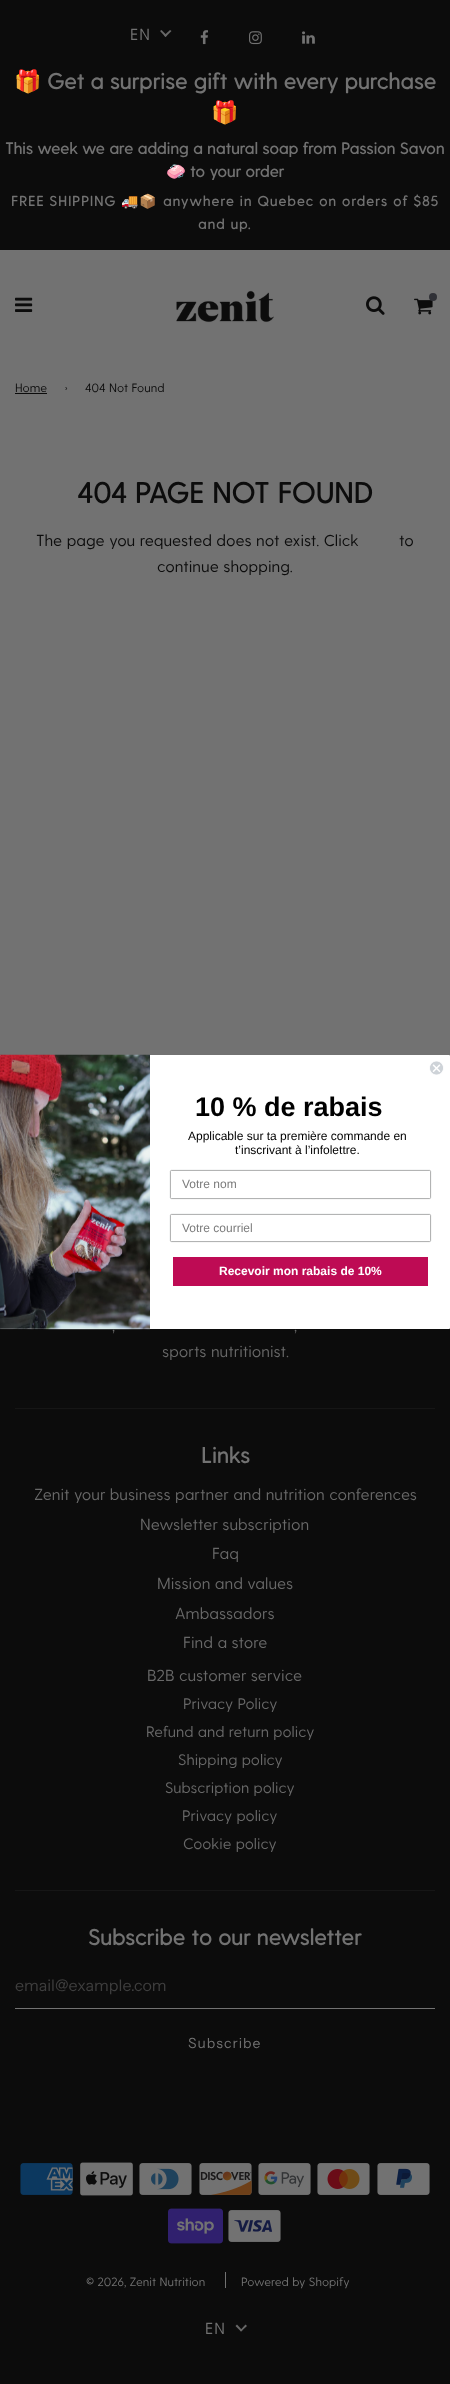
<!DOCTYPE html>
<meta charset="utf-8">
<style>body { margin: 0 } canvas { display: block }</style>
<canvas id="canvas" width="450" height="2384"></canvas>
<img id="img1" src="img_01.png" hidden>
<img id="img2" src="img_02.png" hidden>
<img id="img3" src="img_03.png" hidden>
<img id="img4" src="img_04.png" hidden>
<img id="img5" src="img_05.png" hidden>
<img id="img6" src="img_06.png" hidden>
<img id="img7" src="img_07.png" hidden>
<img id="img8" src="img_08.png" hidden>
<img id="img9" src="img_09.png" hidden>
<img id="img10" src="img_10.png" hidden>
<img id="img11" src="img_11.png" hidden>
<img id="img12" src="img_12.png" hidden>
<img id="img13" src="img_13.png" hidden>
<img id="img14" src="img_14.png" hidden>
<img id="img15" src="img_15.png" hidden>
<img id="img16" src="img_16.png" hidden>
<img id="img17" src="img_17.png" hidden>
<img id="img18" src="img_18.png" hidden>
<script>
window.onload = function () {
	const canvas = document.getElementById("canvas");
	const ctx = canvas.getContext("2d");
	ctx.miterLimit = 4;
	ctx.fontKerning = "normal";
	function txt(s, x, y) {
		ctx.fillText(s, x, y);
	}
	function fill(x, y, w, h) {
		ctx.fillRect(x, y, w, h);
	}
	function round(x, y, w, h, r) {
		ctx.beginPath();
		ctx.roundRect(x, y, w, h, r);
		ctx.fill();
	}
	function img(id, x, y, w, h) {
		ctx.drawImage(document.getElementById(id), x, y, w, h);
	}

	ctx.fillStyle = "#727272";
	fill(0, 0, 450, 2384);
	ctx.fillStyle = "#0C0C0C";
	fill(0, 0, 450, 250);
	ctx.fillStyle = "#686868";
	ctx.beginPath();
	ctx.moveTo(170, 30);
	ctx.lineTo(171.5, 31);
	ctx.lineTo(165.5, 37);
	ctx.lineTo(164, 35.5);
	ctx.closePath();
	ctx.fill();
	ctx.beginPath();
	ctx.moveTo(161.5, 30);
	ctx.lineTo(167, 35.5);
	ctx.lineTo(165.5, 37);
	ctx.lineTo(160, 31);
	ctx.closePath();
	ctx.fill();
	img("img1", 200, 30, 9, 15);
	img("img2", 249, 31, 13, 14);
	img("img3", 302, 31, 13, 13);
	img("img4", 15, 297, 18, 15);
	img("img5", 176, 290, 98, 33);
	img("img6", 366, 296, 19, 19);
	img("img7", 414, 298, 19, 17);
	ctx.fillStyle = "#303137";
	ctx.beginPath();
	ctx.arc(433, 297, 4, 0, Math.PI * 2);
	ctx.fill();
	ctx.fillStyle = "#0C0C0C";
	fill(15, 393, 32, 1);
	fill(0, 1328, 450, 1056);
	ctx.fillStyle = "#161616";
	fill(15, 1408, 420, 1);
	fill(15, 1890, 420, 1);
	ctx.fillStyle = "#727272";
	fill(15, 2008, 420, 1);
	img("img8", 20, 2163, 53, 32);
	img("img9", 80, 2162, 53, 34);
	img("img10", 139, 2163, 53, 32);
	img("img11", 199, 2163, 53, 32);
	img("img12", 258, 2163, 53, 32);
	img("img13", 317, 2163, 53, 32);
	img("img14", 377, 2163, 53, 32);
	img("img15", 168, 2208, 55, 36);
	img("img16", 228, 2210, 53, 32);
	fill(225, 2272, 1, 16);
	ctx.fillStyle = "#686868";
	ctx.beginPath();
	ctx.moveTo(245.5, 2324.5);
	ctx.lineTo(247, 2326);
	ctx.lineTo(241, 2331.5);
	ctx.lineTo(240, 2330.5);
	ctx.closePath();
	ctx.fill();
	ctx.beginPath();
	ctx.moveTo(237, 2324.5);
	ctx.lineTo(242.5, 2330.5);
	ctx.lineTo(241, 2331.5);
	ctx.lineTo(235.5, 2326);
	ctx.closePath();
	ctx.fill();
	ctx.fillStyle = "#FFFFFF";
	round(0, 1055, 450, 274, 1);
	img("img17", 429, 1061, 15, 14);
	ctx.beginPath();
	ctx.roundRect(170.4, 1170.4, 260.2, 28.2, 1.1);
	ctx.strokeStyle = "#949596";
	ctx.lineWidth = 0.8;
	ctx.stroke();
	ctx.beginPath();
	ctx.roundRect(170.4, 1214.4, 260.2, 27.2, 1.1);
	ctx.stroke();
	ctx.fillStyle = "#BE0B54";
	fill(173, 1257, 255, 29);
	ctx.letterSpacing = "1px";
	ctx.font = "16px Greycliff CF";
	ctx.fillStyle = "#727272";
	txt("EN", 130, 40);
	ctx.letterSpacing = "0px";
	ctx.font = "bold 22.1px Noto Color Emoji";
	txt("🎁", 14, 89);
	ctx.font = "bold 22.1px Greycliff CF";
	txt("Get a surprise gift with every purchase", 47, 89);
	ctx.font = "bold 22.1px Noto Color Emoji";
	txt("🎁", 211, 120);
	ctx.font = "bold 16px Greycliff CF";
	txt("This week we are adding a natural soap from Passion Savon", 5, 154);
	ctx.font = "bold 16px Noto Color Emoji";
	txt("🧼", 166, 177);
	ctx.font = "bold 16px Greycliff CF";
	txt("to your order", 190, 177);
	ctx.letterSpacing = "1px";
	ctx.font = "bold 14px Greycliff CF";
	txt("FREE SHIPPING", 11, 206);
	ctx.font = "bold 14px Noto Color Emoji";
	txt("🚚📦", 121, 206);
	ctx.font = "bold 14px Greycliff CF";
	txt("anywhere in Quebec on orders of $85", 163, 206);
	txt("and up.", 198, 229);
	ctx.letterSpacing = "0px";
	ctx.font = "12px Greycliff CF";
	ctx.fillStyle = "#0C0C0C";
	txt("Home", 15, 392);
	txt("›", 65, 392);
	txt("404 Not Found", 85, 392);
	ctx.font = "bold 29px Greycliff CF";
	txt("404 PAGE NOT FOUND", 77, 503);
	ctx.font = "16px Greycliff CF";
	txt("The page you requested does not exist. Click", 36, 546);
	txt("to", 399, 546);
	txt("continue shopping.", 157, 572);
	ctx.fillStyle = "#686868";
	txt(",", 112, 1331);
	txt(",", 294, 1331);
	txt("sports nutritionist.", 162, 1357);
	ctx.font = "bold 22.1px Greycliff CF";
	ctx.fillStyle = "#727272";
	txt("Links", 201, 1463);
	ctx.font = "16px Greycliff CF";
	ctx.fillStyle = "#686868";
	txt("Zenit your business partner and nutrition conferences", 34, 1500);
	txt("Newsletter subscription", 140, 1530);
	txt("Faq", 212, 1559);
	txt("Mission and values", 157, 1589);
	txt("Ambassadors", 175, 1619);
	txt("Find a store", 183, 1648);
	txt("B2B customer service", 147, 1681);
	ctx.font = "15.25px Greycliff CF";
	txt("Privacy Policy", 183, 1709);
	txt("Refund and return policy", 146, 1737);
	txt("Shipping policy", 178, 1765);
	txt("Subscription policy", 165, 1793);
	txt("Privacy policy", 182, 1821);
	txt("Cookie policy", 183, 1849);
	ctx.font = "bold 22.1px Greycliff CF";
	ctx.fillStyle = "#727272";
	txt("Subscribe to our newsletter", 88, 1945);
	ctx.font = "16px Instrument Sans";
	ctx.fillStyle = "#3E3E3E";
	txt("email@example.com", 15, 1991);
	ctx.letterSpacing = "1px";
	ctx.font = "14px Instrument Sans";
	ctx.fillStyle = "#727272";
	txt("Subscribe", 188, 2048);
	ctx.letterSpacing = "0px";
	ctx.font = "12px Greycliff CF";
	txt("© 2026, Zenit Nutrition", 86, 2286);
	txt("Powered by Shopify", 241, 2286);
	ctx.letterSpacing = "1px";
	ctx.font = "16px Greycliff CF";
	txt("EN", 205, 2334);
	img("img18", 0, 1054, 150, 276);
	ctx.letterSpacing = "0px";
	ctx.font = "bold 27px Liberation Sans";
	ctx.fillStyle = "#000000";
	txt("10 % de rabais", 195, 1116);
	ctx.font = "12px Liberation Sans";
	txt("Applicable sur ta première commande en", 188, 1140);
	txt("t’inscrivant à l’infolettre.", 235, 1154);
	ctx.fillStyle = "#7C7C7C";
	txt("Votre nom", 182, 1188);
	txt("Votre courriel", 182, 1232);
	ctx.font = "bold 12px Liberation Sans";
	ctx.fillStyle = "#FFFFFF";
	txt("Recevoir mon rabais de 10%", 219, 1275);
};
</script>
